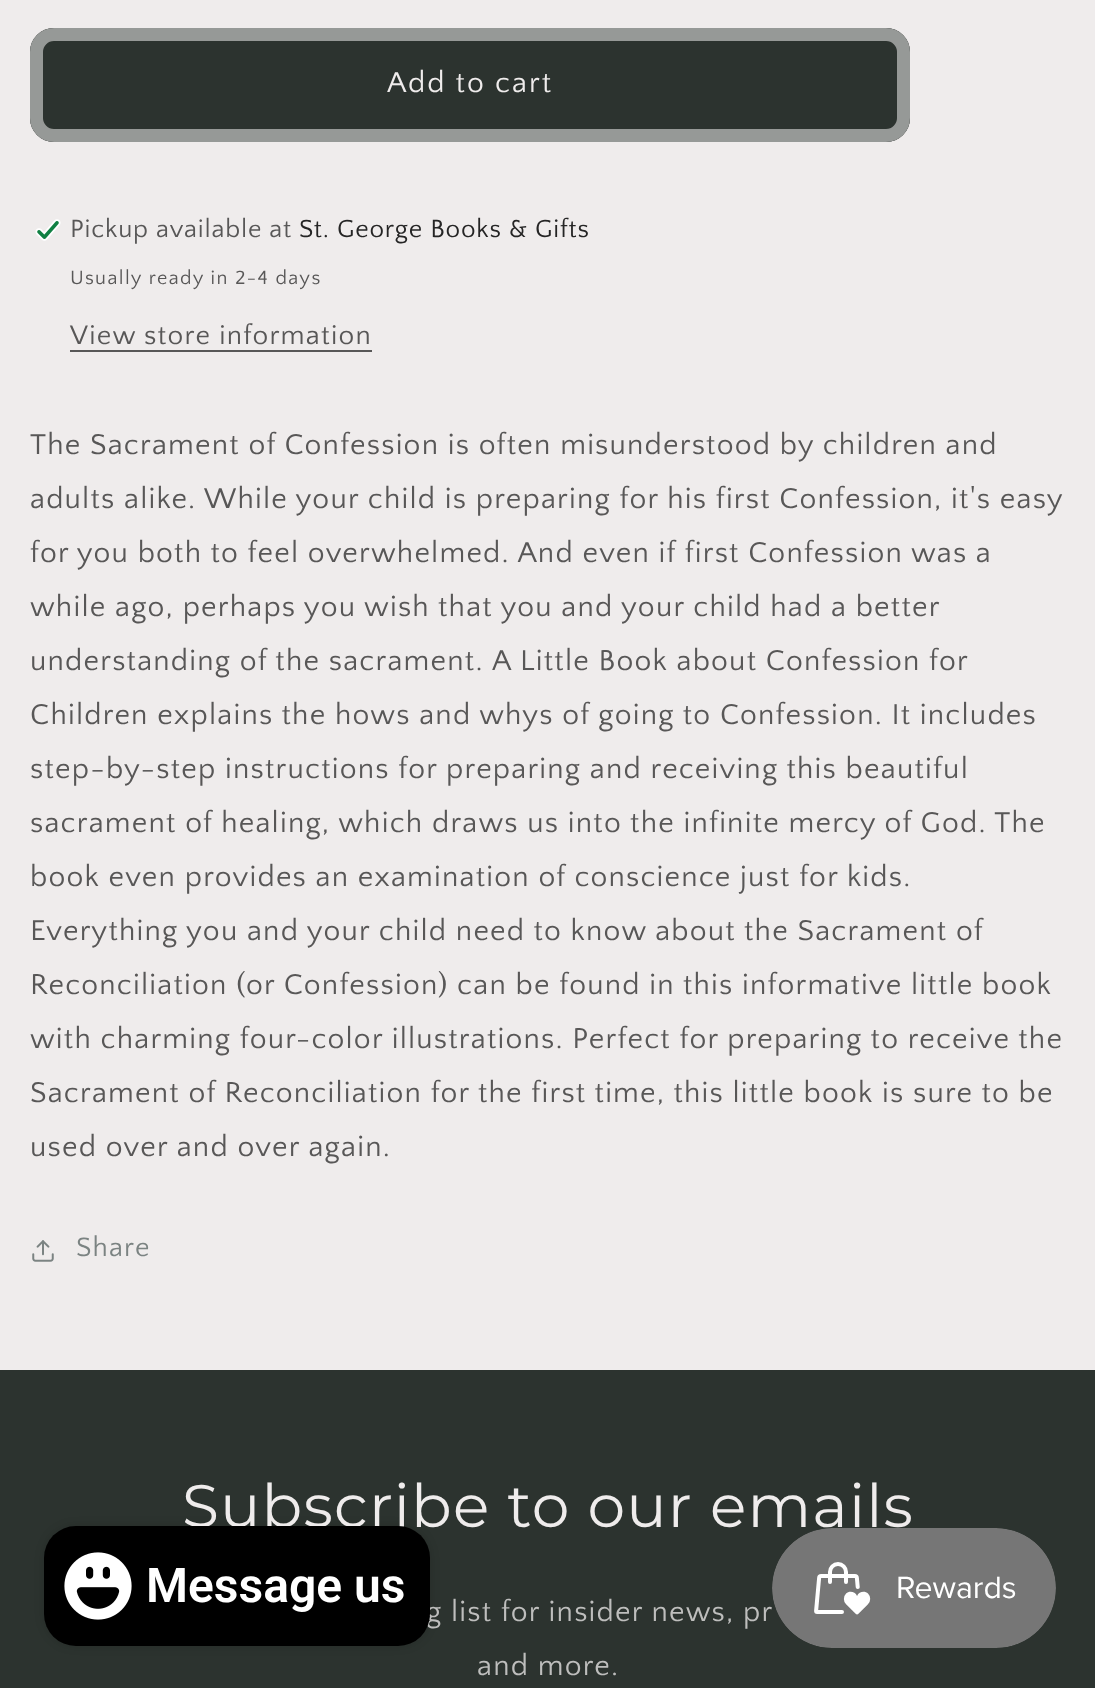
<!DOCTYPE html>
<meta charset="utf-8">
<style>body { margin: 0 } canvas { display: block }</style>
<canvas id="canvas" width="1095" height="1688"></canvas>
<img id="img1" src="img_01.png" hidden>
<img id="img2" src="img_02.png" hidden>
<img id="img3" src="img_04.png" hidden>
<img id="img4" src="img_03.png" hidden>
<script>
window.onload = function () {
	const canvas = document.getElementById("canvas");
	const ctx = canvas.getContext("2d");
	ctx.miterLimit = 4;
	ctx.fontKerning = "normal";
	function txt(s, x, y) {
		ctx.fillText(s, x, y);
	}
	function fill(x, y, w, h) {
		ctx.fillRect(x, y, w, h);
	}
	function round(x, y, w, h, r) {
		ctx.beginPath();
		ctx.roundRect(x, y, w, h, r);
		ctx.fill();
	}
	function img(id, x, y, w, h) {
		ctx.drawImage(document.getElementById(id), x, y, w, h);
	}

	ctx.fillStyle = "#EFECEC";
	fill(0, 0, 1095, 1688);
	ctx.fillStyle = "#2C332F";
	round(30, 28, 880, 114, 24);
	ctx.beginPath();
	ctx.roundRect(36, 34, 868, 102, 18);
	ctx.strokeStyle = "#2C332F";
	ctx.lineWidth = 12;
	ctx.stroke();
	ctx.beginPath();
	ctx.roundRect(36.5, 34.5, 867, 101, 17.5);
	ctx.strokeStyle = "rgba(239, 236, 236, 0.55)";
	ctx.lineWidth = 13;
	ctx.stroke();
	img("img1", 35, 219, 26, 22);
	ctx.fillStyle = "#585757";
	fill(70, 350, 302, 2);
	img("img2", 32, 1240, 22, 22);
	ctx.fillStyle = "#2C332F";
	fill(0, 1370, 1095, 318);
	ctx.fillStyle = "rgba(0, 0, 0, 0.15)";
	ctx.filter = "blur(5px)";
	ctx.beginPath();
	ctx.roundRect(44, 1526, 386, 120, 32);
	ctx.fill();
	ctx.filter = "none";
	img("img3", 772, 1528, 284, 120);
	ctx.letterSpacing = "2px";
	ctx.font = "30px Quattrocento Sans";
	ctx.fillStyle = "#EFECEC";
	txt("Add to cart", 387, 92);
	ctx.letterSpacing = "0.8px";
	ctx.font = "26px Quattrocento Sans";
	ctx.fillStyle = "#585757";
	txt("Pickup available at", 70, 237);
	ctx.fillStyle = "#252525";
	txt("St. George Books & Gifts", 299, 237);
	ctx.letterSpacing = "1.4px";
	ctx.font = "20px Quattrocento Sans";
	ctx.fillStyle = "#585757";
	txt("Usually ready in 2-4 days", 70, 284);
	ctx.letterSpacing = "1.2px";
	ctx.font = "28px Quattrocento Sans";
	txt("View store information", 70, 344);
	ctx.font = "30px Quattrocento Sans";
	txt("The Sacrament of Confession is often misunderstood by children and", 30, 454);
	txt("adults alike. While your child is preparing for his first Confession, it's easy", 30, 508);
	txt("for you both to feel overwhelmed. And even if first Confession was a", 30, 562);
	txt("while ago, perhaps you wish that you and your child had a better", 30, 616);
	txt("understanding of the sacrament.", 30, 670);
	txt("A Little Book about Confession for", 492, 670);
	txt("Children explains the hows and whys of going to Confession. It includes", 30, 724);
	txt("step-by-step instructions for preparing and receiving this beautiful", 30, 778);
	txt("sacrament of healing, which draws us into the infinite mercy of God. The", 30, 832);
	txt("book even provides an examination of conscience just for kids.", 30, 886);
	txt("Everything you and your child need to know about the Sacrament of", 30, 940);
	txt("Reconciliation (or Confession) can be found in this informative little book", 30, 994);
	txt("with charming four-color illustrations. Perfect for preparing to receive the", 30, 1048);
	txt("Sacrament of Reconciliation for the first time, this little book is sure to be", 30, 1102);
	txt("used over and over again.", 30, 1156);
	ctx.font = "28px Quattrocento Sans";
	ctx.fillStyle = "#7B8382";
	txt("Share", 76, 1256);
	ctx.font = "60px Montserrat";
	ctx.fillStyle = "#EFECEC";
	txt("Subscribe to our emails", 182, 1527);
	ctx.font = "30px Quattrocento Sans";
	ctx.fillStyle = "#BEBEBD";
	txt("g list for insider news, pr", 426, 1621);
	txt("and more.", 477, 1675);
	ctx.fillStyle = "#000000";
	round(44, 1526, 386, 120, 32);
	img("img4", 64, 1552, 68, 68);
	ctx.letterSpacing = "0px";
	ctx.font = "600 48px Roboto";
	ctx.fillStyle = "#FFFFFF";
	txt("Message us", 146, 1602);
};
</script>
